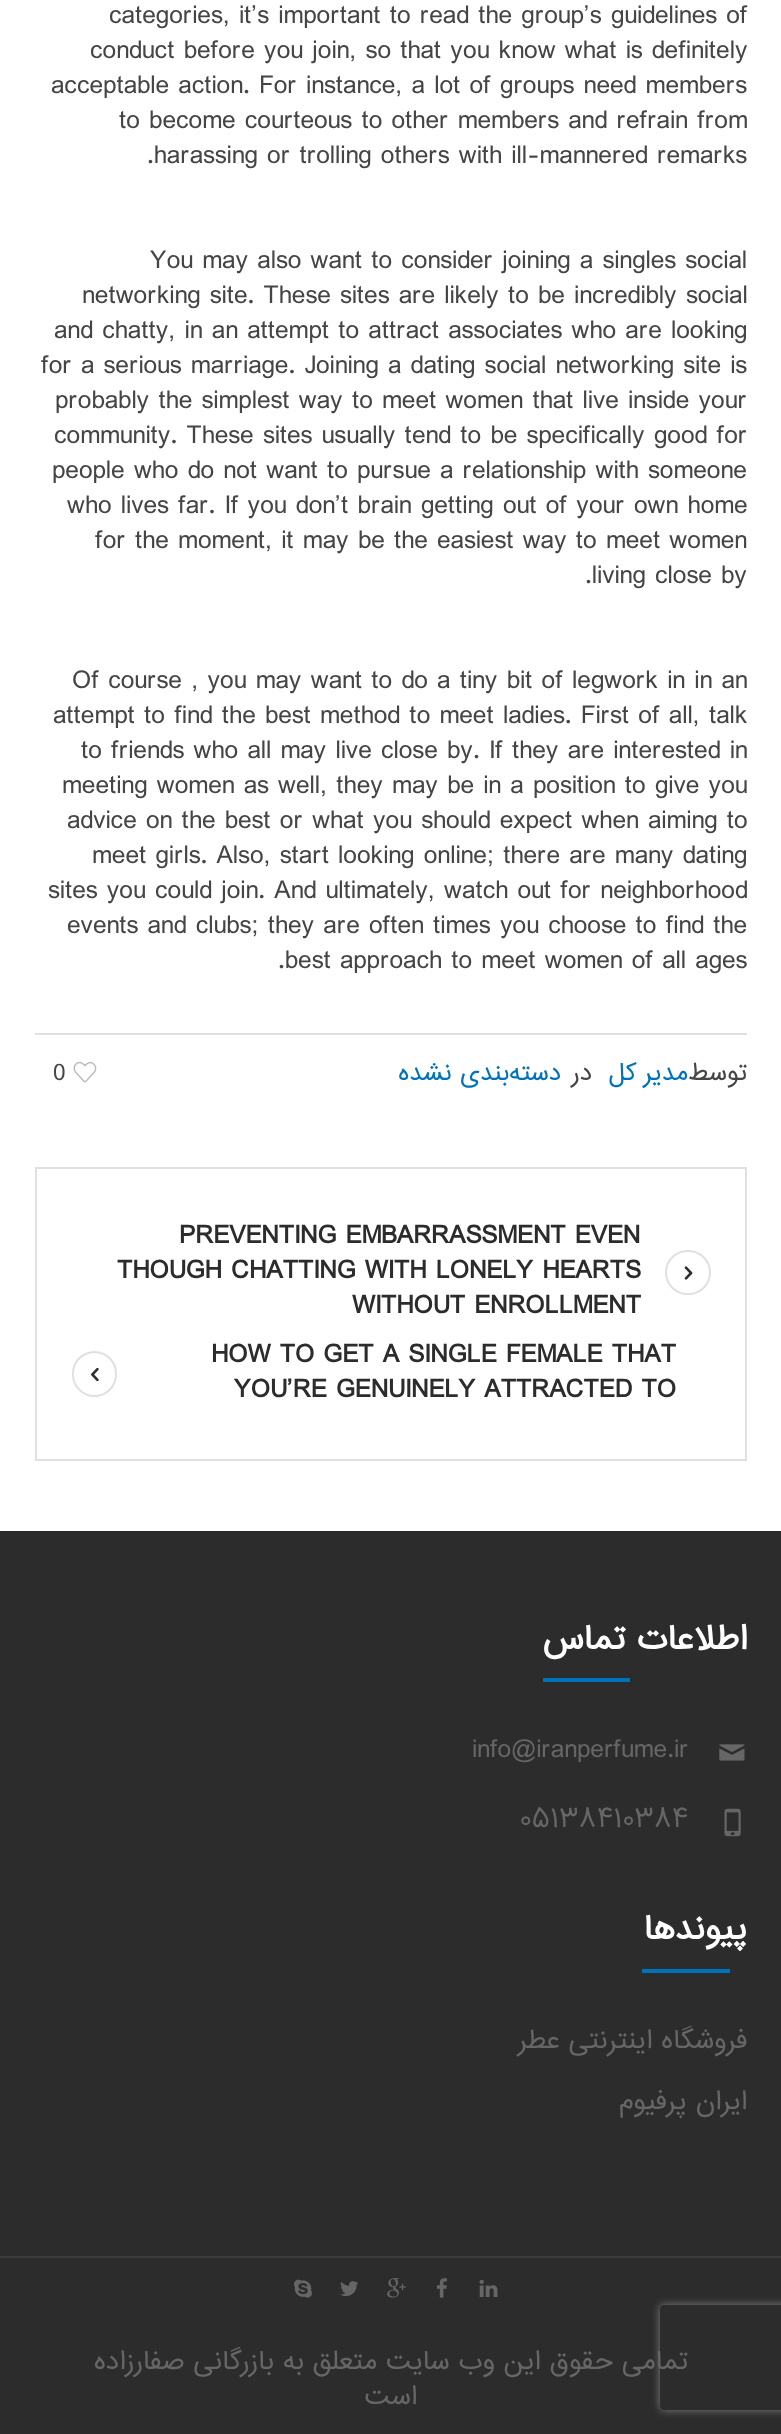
<!DOCTYPE html>
<meta charset="utf-8">
<style>body { margin: 0 } canvas { display: block }</style>
<canvas id="canvas" width="781" height="2434"></canvas>
<img id="img1" src="img_01.png" hidden>
<img id="img2" src="img_02.png" hidden>
<img id="img3" src="img_03.png" hidden>
<img id="img4" src="img_04.png" hidden>
<img id="img5" src="img_05.png" hidden>
<img id="img6" src="img_06.png" hidden>
<img id="img7" src="img_07.png" hidden>
<img id="img8" src="img_08.png" hidden>
<img id="img9" src="img_09.png" hidden>
<img id="img10" src="img_10.png" hidden>
<script>
window.onload = function () {
	const canvas = document.getElementById("canvas");
	const ctx = canvas.getContext("2d");
	ctx.miterLimit = 4;
	ctx.fontKerning = "normal";
	function txt(s, x, y) {
		ctx.fillText(s, x, y);
	}
	function fill(x, y, w, h) {
		ctx.fillRect(x, y, w, h);
	}
	function img(id, x, y, w, h) {
		ctx.drawImage(document.getElementById(id), x, y, w, h);
	}

	ctx.fillStyle = "#FFFFFF";
	fill(0, 0, 781, 2434);
	ctx.fillStyle = "#E0E0E0";
	fill(35, 1033, 712, 2);
	img("img1", 73, 1061, 24, 22);
	ctx.strokeStyle = "#E0E0E0";
	ctx.lineWidth = 2;
	ctx.strokeRect(36, 1168, 710, 292);
	ctx.beginPath();
	ctx.roundRect(666, 1251, 44, 43, 21.5);
	ctx.stroke();
	img("img2", 684, 1266, 9, 14);
	ctx.beginPath();
	ctx.roundRect(73, 1352, 43, 44, 21.5);
	ctx.stroke();
	img("img3", 91, 1367, 8, 15);
	ctx.fillStyle = "#2C2C2C";
	fill(0, 1531, 781, 725);
	ctx.fillStyle = "#0072BC";
	fill(543, 1678, 87, 4);
	img("img4", 719, 1744, 26, 17);
	img("img5", 724, 1808, 17, 29);
	fill(642, 1969, 88, 4);
	ctx.fillStyle = "#2C2C2C";
	fill(0, 2258, 781, 176);
	ctx.fillStyle = "#3B3B3B";
	fill(0, 2256, 781, 2);
	img("img6", 294, 2279, 18, 19);
	img("img7", 340, 2281, 19, 16);
	img("img8", 387, 2278, 19, 20);
	img("img9", 436, 2278, 11, 20);
	img("img10", 479, 2280, 19, 17);
	ctx.save();
	ctx.beginPath();
	ctx.moveTo(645, 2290);
	ctx.lineTo(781, 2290);
	ctx.lineTo(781, 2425);
	ctx.lineTo(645, 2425);
	ctx.closePath();
	ctx.moveTo(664, 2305);
	ctx.lineTo(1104, 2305);
	ctx.bezierCurveTo(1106, 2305, 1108, 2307, 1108, 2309);
	ctx.lineTo(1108, 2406);
	ctx.bezierCurveTo(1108, 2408, 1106, 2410, 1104, 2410);
	ctx.lineTo(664, 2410);
	ctx.bezierCurveTo(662, 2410, 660, 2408, 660, 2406);
	ctx.lineTo(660, 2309);
	ctx.bezierCurveTo(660, 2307, 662, 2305, 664, 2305);
	ctx.closePath();
	ctx.clip("evenodd");
	ctx.fillStyle = "#808080";
	ctx.filter = "blur(4.5px)";
	ctx.beginPath();
	ctx.roundRect(660, 2305, 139, 105, 4);
	ctx.fill();
	ctx.filter = "none";
	ctx.restore();
	ctx.font = "24.5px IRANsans";
	ctx.fillStyle = "#454545";
	txt("categories, it’s important to read the group’s guidelines of", 109, 23);
	txt("conduct before you join, so that you know what is definitely", 90, 58);
	txt("acceptable action. For instance, a lot of groups need members", 51, 93);
	txt("to become courteous to other members and refrain from", 119, 128);
	txt(".harassing or trolling others with ill-mannered remarks", 147, 163);
	txt("You may also want to consider joining a singles social", 150, 268);
	txt("networking site. These sites are likely to be incredibly social", 82, 303);
	txt("and chatty, in an attempt to attract associates who are looking", 54, 338);
	txt("for a serious marriage. Joining a dating social networking site is", 41, 373);
	txt("probably the simplest way to meet women that live inside your", 55, 408);
	txt("community. These sites usually tend to be specifically good for", 54, 443);
	txt("people who do not want to pursue a relationship with someone", 52, 478);
	txt("who lives far. If you don’t brain getting out of your own home", 67, 513);
	txt("for the moment, it may be the easiest way to meet women", 95, 548);
	txt(".living close by", 585, 583);
	txt("Of course , you may want to do a tiny bit of legwork in in an", 72, 688);
	txt("attempt to find the best method to meet ladies. First of all, talk", 53, 723);
	txt("to friends who all may live close by. If they are interested in", 81, 758);
	txt("meeting women as well, they may be in a position to give you", 62, 793);
	txt("advice on the best or what you should expect when aiming to", 67, 828);
	txt("meet girls. Also, start looking online; there are many dating", 92, 863);
	txt("sites you could join. And ultimately, watch out for neighborhood", 48, 898);
	txt("events and clubs; they are often times you choose to find the", 67, 933);
	txt(".best approach to meet women of all ages", 278, 968);
	ctx.font = "22.75px IRANsans";
	txt("0", 53, 1080);
	ctx.direction = "rtl";
	ctx.fillStyle = "#0072BC";
	txt("دسته‌بندی نشده", 561, 1080);
	ctx.fillStyle = "#454545";
	txt("در", 592, 1080);
	ctx.wordSpacing = "-1px";
	ctx.fillStyle = "#0072BC";
	txt("مدیر کل", 688, 1080);
	ctx.wordSpacing = "0px";
	ctx.fillStyle = "#454545";
	txt("توسط", 747, 1080);
	ctx.direction = "ltr";
	ctx.font = "bold 24.5px IRANsans";
	ctx.fillStyle = "#2C2C2C";
	txt("PREVENTING EMBARRASSMENT EVEN", 179, 1243);
	txt("THOUGH CHATTING WITH LONELY HEARTS", 117, 1278);
	txt("WITHOUT ENROLLMENT", 352, 1313);
	txt("HOW TO GET A SINGLE FEMALE THAT", 211, 1362);
	txt("YOU’RE GENUINELY ATTRACTED TO", 234, 1397);
	ctx.direction = "rtl";
	ctx.font = "bold 31.5px IRANsans";
	ctx.fillStyle = "#FFFFFF";
	txt("اطلاعات تماس", 747, 1649);
	ctx.direction = "ltr";
	ctx.font = "24.5px IRANsans";
	ctx.fillStyle = "#666666";
	txt("info@iranperfume.ir", 472, 1757);
	txt("۰۵۱۳۸۴۱۰۳۸۴", 520, 1827);
	ctx.direction = "rtl";
	ctx.font = "bold 31.5px IRANsans";
	ctx.fillStyle = "#FFFFFF";
	txt("پیوندها", 747, 1939);
	ctx.font = "24.5px IRANsans";
	ctx.fillStyle = "#666666";
	txt("فروشگاه اینترنتی عطر", 747, 2048);
	txt("ایران پرفیوم", 747, 2109);
	txt("تمامی حقوق این وب سایت متعلق به بازرگانی صفارزاده", 688, 2369);
	txt("است", 417, 2404);
};
</script>
